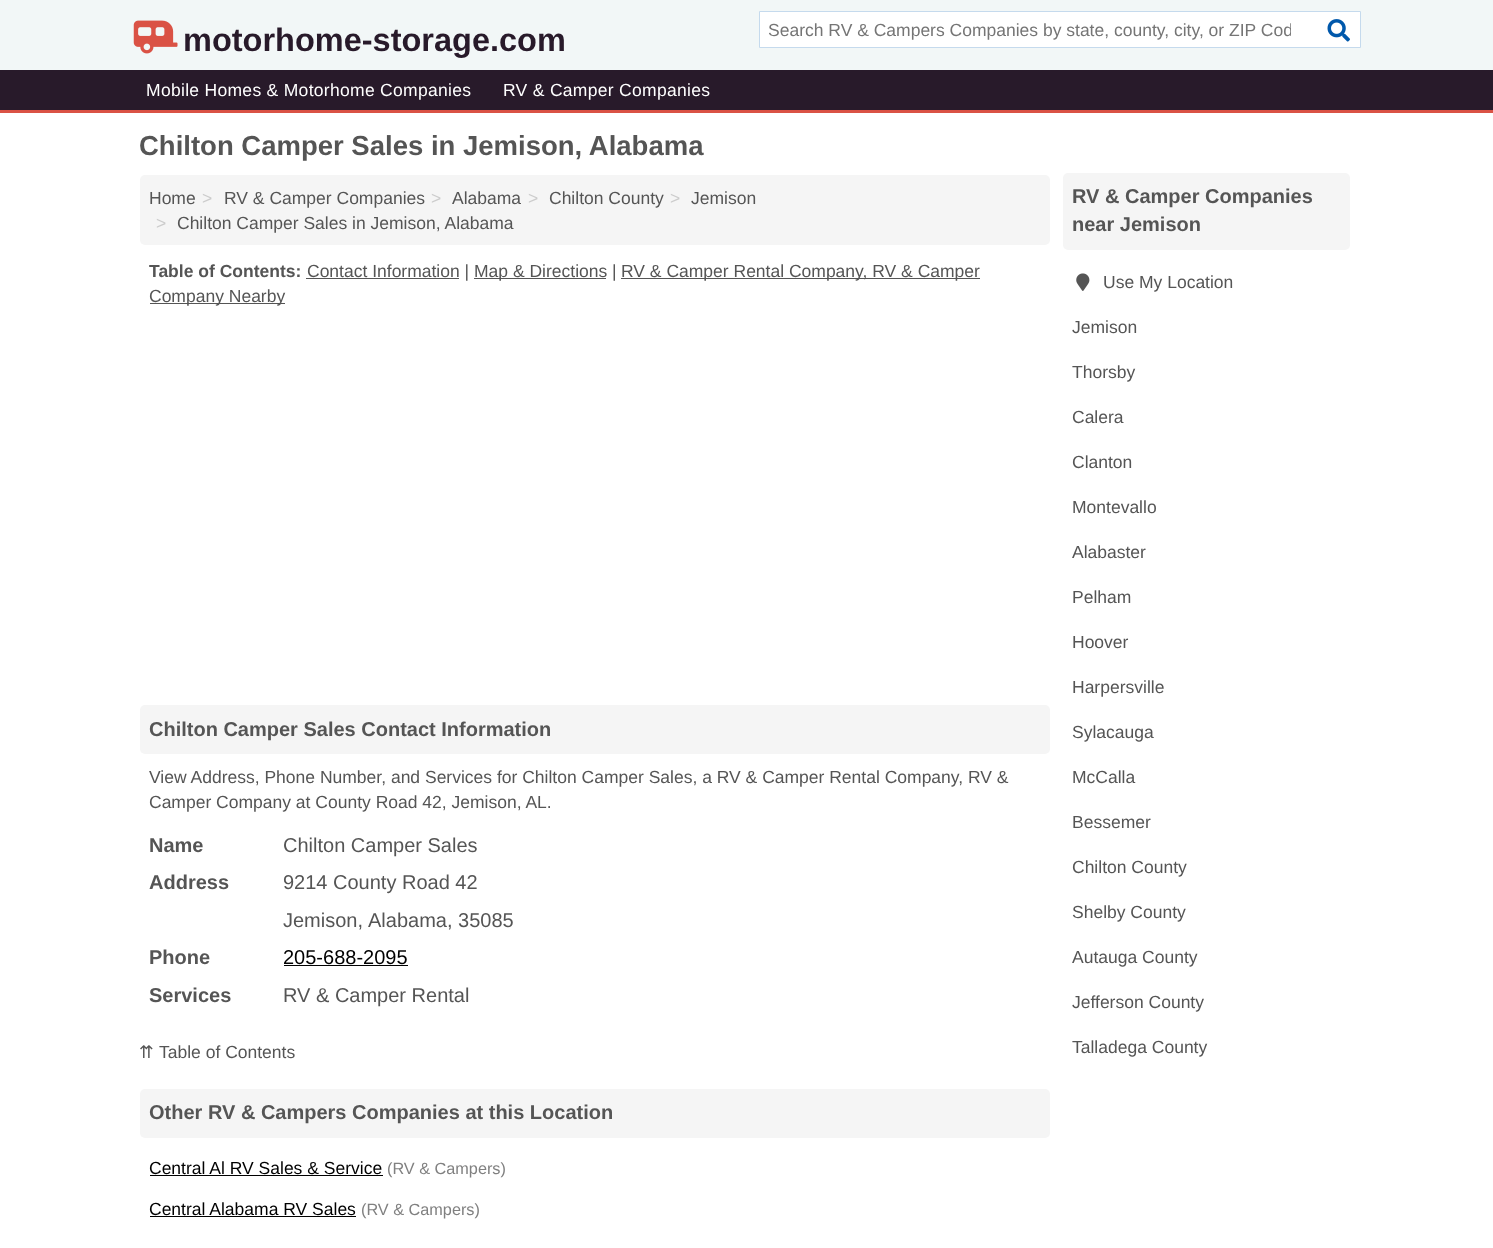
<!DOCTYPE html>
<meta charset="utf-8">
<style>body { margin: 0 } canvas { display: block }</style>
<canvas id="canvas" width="1493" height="1248"></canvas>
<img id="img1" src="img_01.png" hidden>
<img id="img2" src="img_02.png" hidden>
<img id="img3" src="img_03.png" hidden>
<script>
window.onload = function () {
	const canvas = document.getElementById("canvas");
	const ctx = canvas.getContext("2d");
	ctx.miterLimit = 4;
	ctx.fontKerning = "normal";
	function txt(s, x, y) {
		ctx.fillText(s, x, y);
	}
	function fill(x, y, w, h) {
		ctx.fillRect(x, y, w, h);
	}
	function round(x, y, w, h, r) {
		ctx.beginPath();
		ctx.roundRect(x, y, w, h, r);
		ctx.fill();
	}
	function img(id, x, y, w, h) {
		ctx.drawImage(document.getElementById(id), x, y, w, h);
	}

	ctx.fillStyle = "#FFFFFF";
	fill(0, 0, 1493, 1248);
	ctx.fillStyle = "#F2F7F7";
	fill(0, 0, 1493, 70);
	ctx.fillStyle = "#DA5245";
	fill(0, 110, 1493, 3);
	img("img1", 133, 20, 45, 34);
	ctx.fillStyle = "#FFFFFF";
	ctx.beginPath();
	ctx.rect(759.5, 11.5, 601, 36);
	ctx.fill();
	ctx.strokeStyle = "#C5DAED";
	ctx.stroke();
	img("img2", 1327, 19, 23, 23);
	ctx.fillStyle = "#281A2A";
	fill(0, 70, 1493, 40);
	ctx.fillStyle = "#F5F5F5";
	round(140, 175, 910, 70, 5);
	ctx.fillStyle = "#555555";
	fill(306, 278, 153, 1);
	fill(474, 278, 132, 1);
	fill(621, 278, 359, 1);
	fill(150, 303, 135, 1);
	ctx.fillStyle = "#F5F5F5";
	round(140, 705, 910, 49, 5);
	ctx.fillStyle = "#000000";
	fill(284, 965, 124, 1);
	ctx.fillStyle = "#F5F5F5";
	round(140, 1089, 910, 49, 5);
	ctx.fillStyle = "#000000";
	fill(150, 1175, 233, 1);
	fill(150, 1216, 206, 1);
	ctx.fillStyle = "#F5F5F5";
	round(1063, 173, 287, 77, 5);
	img("img3", 1076, 273, 14, 18);
	ctx.font = "bold 32.5px Liberation Sans";
	ctx.fillStyle = "#281A2A";
	txt("motorhome-storage.com", 183, 51);
	ctx.save();
	ctx.beginPath();
	ctx.rect(769, 20, 522, 20);
	ctx.clip();
	ctx.font = "17.5px Liberation Sans";
	ctx.fillStyle = "#757575";
	txt("Search RV & Campers Companies by state, county, city, or ZIP Cod", 768, 36);
	ctx.restore();
	ctx.letterSpacing = "0.3px";
	ctx.font = "17.5px Liberation Sans";
	ctx.fillStyle = "#FFFFFF";
	txt("Mobile Homes & Motorhome Companies", 146, 96);
	txt("RV & Camper Companies", 503, 96);
	ctx.letterSpacing = "0px";
	ctx.font = "bold 27.5px Liberation Sans";
	ctx.fillStyle = "#555555";
	txt("Chilton Camper Sales in Jemison, Alabama", 139, 155);
	ctx.font = "17.5px Liberation Sans";
	txt("Home", 149, 204);
	ctx.fillStyle = "#CCCCCC";
	txt(">", 202, 204);
	ctx.fillStyle = "#555555";
	txt("RV & Camper Companies", 224, 204);
	ctx.fillStyle = "#CCCCCC";
	txt(">", 431, 204);
	ctx.fillStyle = "#555555";
	txt("Alabama", 452, 204);
	ctx.fillStyle = "#CCCCCC";
	txt(">", 528, 204);
	ctx.fillStyle = "#555555";
	txt("Chilton County", 549, 204);
	ctx.fillStyle = "#CCCCCC";
	txt(">", 670, 204);
	ctx.fillStyle = "#555555";
	txt("Jemison", 691, 204);
	ctx.fillStyle = "#CCCCCC";
	txt(">", 156, 229);
	ctx.fillStyle = "#555555";
	txt("Chilton Camper Sales in Jemison, Alabama", 177, 229);
	ctx.font = "bold 17.5px Liberation Sans";
	txt("Table of Contents:", 149, 277);
	ctx.font = "17.5px Liberation Sans";
	txt("Contact Information |", 307, 277);
	txt("Map & Directions |", 474, 277);
	txt("RV & Camper Rental Company, RV & Camper", 621, 277);
	txt("Company Nearby", 149, 302);
	ctx.font = "bold 20px Liberation Sans";
	txt("Chilton Camper Sales Contact Information", 149, 736);
	ctx.font = "17.5px Liberation Sans";
	txt("View Address, Phone Number, and Services for Chilton Camper Sales, a RV & Camper Rental Company, RV &", 149, 783);
	txt("Camper Company at County Road 42, Jemison, AL.", 149, 808);
	ctx.font = "bold 20px Liberation Sans";
	txt("Name", 149, 852);
	ctx.font = "20px Liberation Sans";
	txt("Chilton Camper Sales", 283, 852);
	ctx.font = "bold 20px Liberation Sans";
	txt("Address", 149, 889);
	ctx.font = "20px Liberation Sans";
	txt("9214 County Road 42", 283, 889);
	txt("Jemison,", 283, 927);
	txt("Alabama, 35085", 368, 927);
	ctx.font = "bold 20px Liberation Sans";
	txt("Phone", 149, 964);
	ctx.font = "20px Liberation Sans";
	ctx.fillStyle = "#000000";
	txt("205-688-2095", 283, 964);
	ctx.font = "bold 20px Liberation Sans";
	ctx.fillStyle = "#555555";
	txt("Services", 149, 1002);
	ctx.font = "20px Liberation Sans";
	txt("RV & Camper Rental", 283, 1002);
	ctx.font = "17.5px DejaVu Sans";
	txt("⇈", 139, 1058);
	ctx.font = "17.5px Liberation Sans";
	txt("Table of Contents", 159, 1058);
	ctx.font = "bold 20px Liberation Sans";
	txt("Other RV & Campers Companies at this Location", 149, 1119);
	ctx.font = "17.5px Liberation Sans";
	ctx.fillStyle = "#000000";
	txt("Central Al RV Sales & Service", 149, 1174);
	ctx.font = "16.25px Liberation Sans";
	ctx.fillStyle = "#808080";
	txt("(RV & Campers)", 387, 1174);
	ctx.font = "17.5px Liberation Sans";
	ctx.fillStyle = "#000000";
	txt("Central Alabama RV Sales", 149, 1215);
	ctx.font = "16.25px Liberation Sans";
	ctx.fillStyle = "#808080";
	txt("(RV & Campers)", 361, 1215);
	ctx.font = "bold 20px Liberation Sans";
	ctx.fillStyle = "#555555";
	txt("RV & Camper Companies", 1072, 203);
	txt("near Jemison", 1072, 231);
	ctx.font = "17.5px Liberation Sans";
	txt("Use My Location", 1103, 288);
	txt("Jemison", 1072, 333);
	txt("Thorsby", 1072, 378);
	txt("Calera", 1072, 423);
	txt("Clanton", 1072, 468);
	txt("Montevallo", 1072, 513);
	txt("Alabaster", 1072, 558);
	txt("Pelham", 1072, 603);
	txt("Hoover", 1072, 648);
	txt("Harpersville", 1072, 693);
	txt("Sylacauga", 1072, 738);
	txt("McCalla", 1072, 783);
	txt("Bessemer", 1072, 828);
	txt("Chilton County", 1072, 873);
	txt("Shelby County", 1072, 918);
	txt("Autauga County", 1072, 963);
	txt("Jefferson County", 1072, 1008);
	txt("Talladega County", 1072, 1053);
};
</script>
